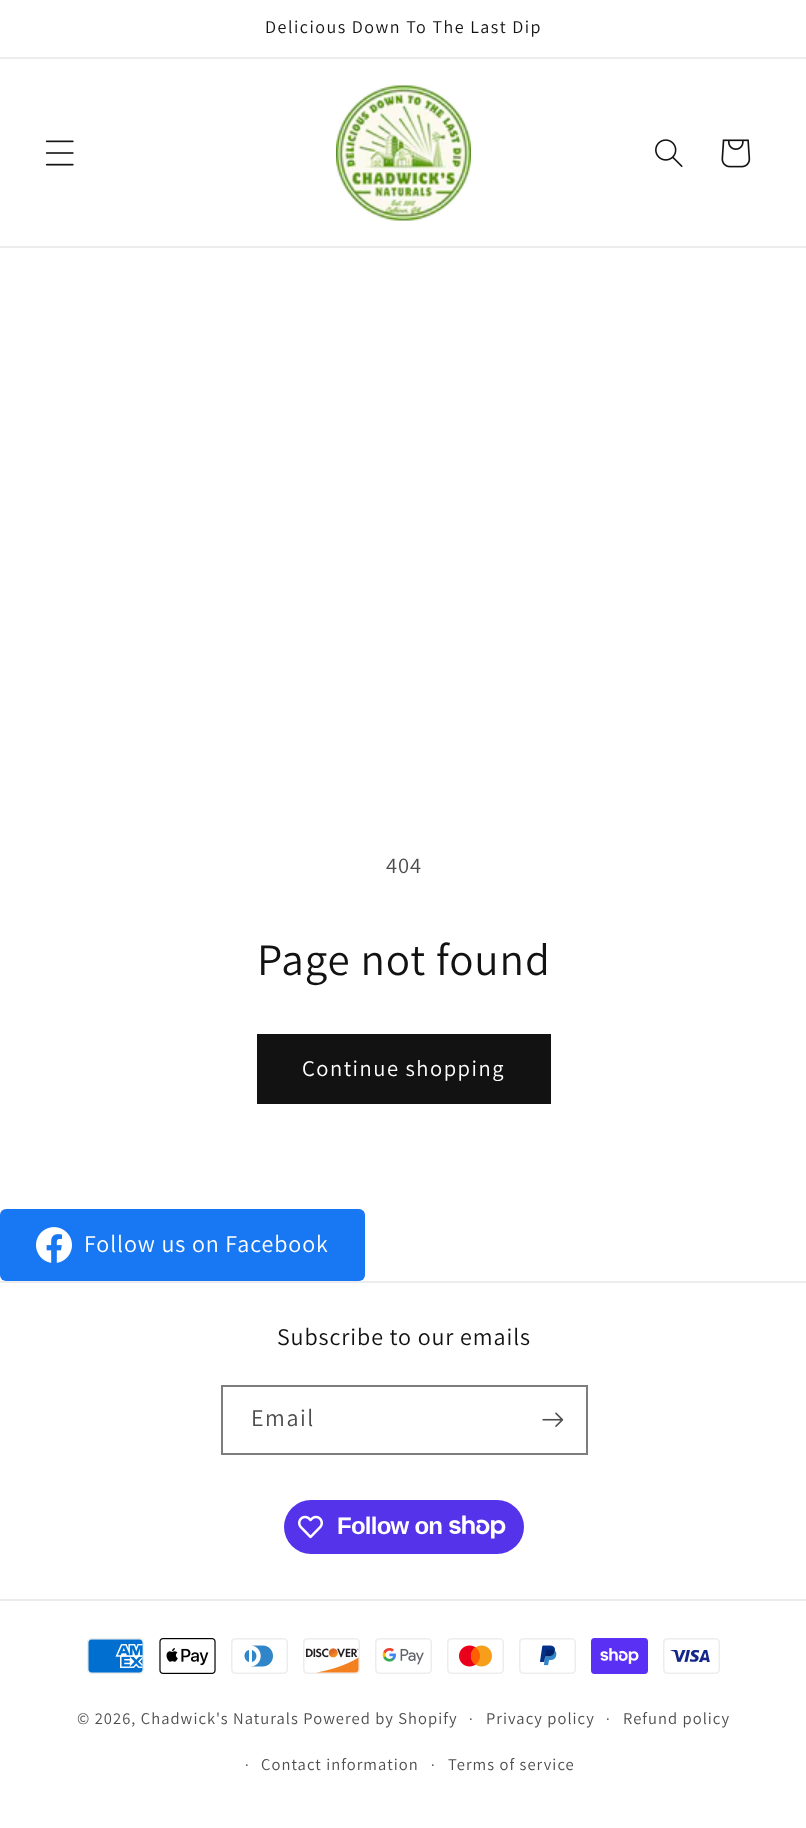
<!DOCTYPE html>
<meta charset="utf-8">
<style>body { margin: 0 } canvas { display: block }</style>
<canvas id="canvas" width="806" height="1828"></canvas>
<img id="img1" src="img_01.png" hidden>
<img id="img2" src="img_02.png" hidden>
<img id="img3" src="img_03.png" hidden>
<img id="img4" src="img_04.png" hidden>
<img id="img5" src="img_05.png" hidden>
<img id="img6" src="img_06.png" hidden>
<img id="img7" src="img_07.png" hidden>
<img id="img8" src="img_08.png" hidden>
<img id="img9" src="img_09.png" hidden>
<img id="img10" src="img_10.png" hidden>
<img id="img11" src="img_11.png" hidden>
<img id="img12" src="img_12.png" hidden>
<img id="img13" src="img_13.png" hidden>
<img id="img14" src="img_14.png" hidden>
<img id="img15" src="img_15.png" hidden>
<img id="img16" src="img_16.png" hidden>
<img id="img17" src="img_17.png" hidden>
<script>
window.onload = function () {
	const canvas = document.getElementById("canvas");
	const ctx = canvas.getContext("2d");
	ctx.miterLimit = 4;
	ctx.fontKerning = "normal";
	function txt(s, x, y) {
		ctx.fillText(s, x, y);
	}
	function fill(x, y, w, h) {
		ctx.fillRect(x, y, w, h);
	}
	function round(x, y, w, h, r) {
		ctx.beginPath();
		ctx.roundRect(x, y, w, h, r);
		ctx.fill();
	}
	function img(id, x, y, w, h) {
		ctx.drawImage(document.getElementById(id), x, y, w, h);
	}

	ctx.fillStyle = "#FFFFFF";
	fill(0, 0, 806, 1828);
	ctx.fillStyle = "#ECECEC";
	fill(0, 57, 806, 2);
	fill(0, 246, 806, 2);
	img("img1", 45, 140, 29, 26);
	img("img2", 336, 85, 135, 136);
	img("img3", 655, 139, 28, 28);
	img("img4", 721, 139, 30, 29);
	ctx.fillStyle = "#121212";
	fill(257, 1034, 294, 70);
	ctx.fillStyle = "#1877F2";
	round(0, 1209, 365, 72, 6);
	img("img5", 36, 1227, 36, 36);
	ctx.fillStyle = "#ECECEC";
	fill(0, 1281, 806, 2);
	ctx.strokeStyle = "#7D7D7D";
	ctx.lineWidth = 2;
	ctx.strokeRect(222, 1386, 365, 68);
	img("img6", 542, 1412, 22, 15);
	ctx.fillStyle = "#5433EB";
	round(284, 1500, 240, 54, 27);
	img("img7", 298, 1515, 25, 24);
	img("img8", 449, 1515, 57, 24);
	ctx.fillStyle = "#ECECEC";
	fill(0, 1599, 806, 2);
	img("img9", 87, 1638, 57, 36);
	img("img10", 159, 1638, 57, 36);
	img("img11", 231, 1638, 57, 36);
	img("img12", 303, 1638, 57, 36);
	img("img13", 375, 1638, 57, 36);
	img("img14", 447, 1638, 57, 36);
	img("img15", 519, 1638, 57, 36);
	img("img16", 591, 1638, 57, 36);
	img("img17", 663, 1638, 57, 36);
	ctx.letterSpacing = "1.5px";
	ctx.font = "18px Assistant";
	ctx.fillStyle = "#121212";
	txt("Delicious Down To The Last Dip", 265, 33);
	ctx.letterSpacing = "0.9px";
	ctx.font = "22.5px Assistant";
	ctx.fillStyle = "#4D4D4D";
	txt("404", 386, 873);
	ctx.font = "45px Assistant";
	ctx.fillStyle = "#121212";
	txt("Page not found", 257, 975);
	ctx.letterSpacing = "1.5px";
	ctx.font = "22.5px Assistant";
	ctx.fillStyle = "#FFFFFF";
	txt("Continue shopping", 302, 1076);
	ctx.letterSpacing = "0.9px";
	ctx.font = "24px Assistant";
	txt("Follow us on Facebook", 84, 1252);
	ctx.fillStyle = "#121212";
	txt("Subscribe to our emails", 277, 1345);
	ctx.letterSpacing = "1.5px";
	ctx.fillStyle = "#4D4D4D";
	txt("Email", 251, 1426);
	ctx.letterSpacing = "-0.75px";
	ctx.font = "bold 24px Liberation Sans";
	ctx.fillStyle = "#FFFFFF";
	txt("Follow on", 337, 1534);
	ctx.letterSpacing = "1.05px";
	ctx.font = "16.5px Assistant";
	ctx.fillStyle = "#4D4D4D";
	txt("© 2026, Chadwick's Naturals Powered by Shopify", 77, 1724);
	ctx.font = "15px Assistant";
	txt("·", 469, 1724);
	ctx.font = "16.5px Assistant";
	txt("Privacy policy", 486, 1724);
	ctx.font = "15px Assistant";
	txt("·", 606, 1724);
	ctx.font = "16.5px Assistant";
	txt("Refund policy", 623, 1724);
	ctx.font = "15px Assistant";
	txt("·", 245, 1770);
	ctx.font = "16.5px Assistant";
	txt("Contact information", 261, 1770);
	ctx.font = "15px Assistant";
	txt("·", 431, 1770);
	ctx.font = "16.5px Assistant";
	txt("Terms of service", 448, 1770);
};
</script>
